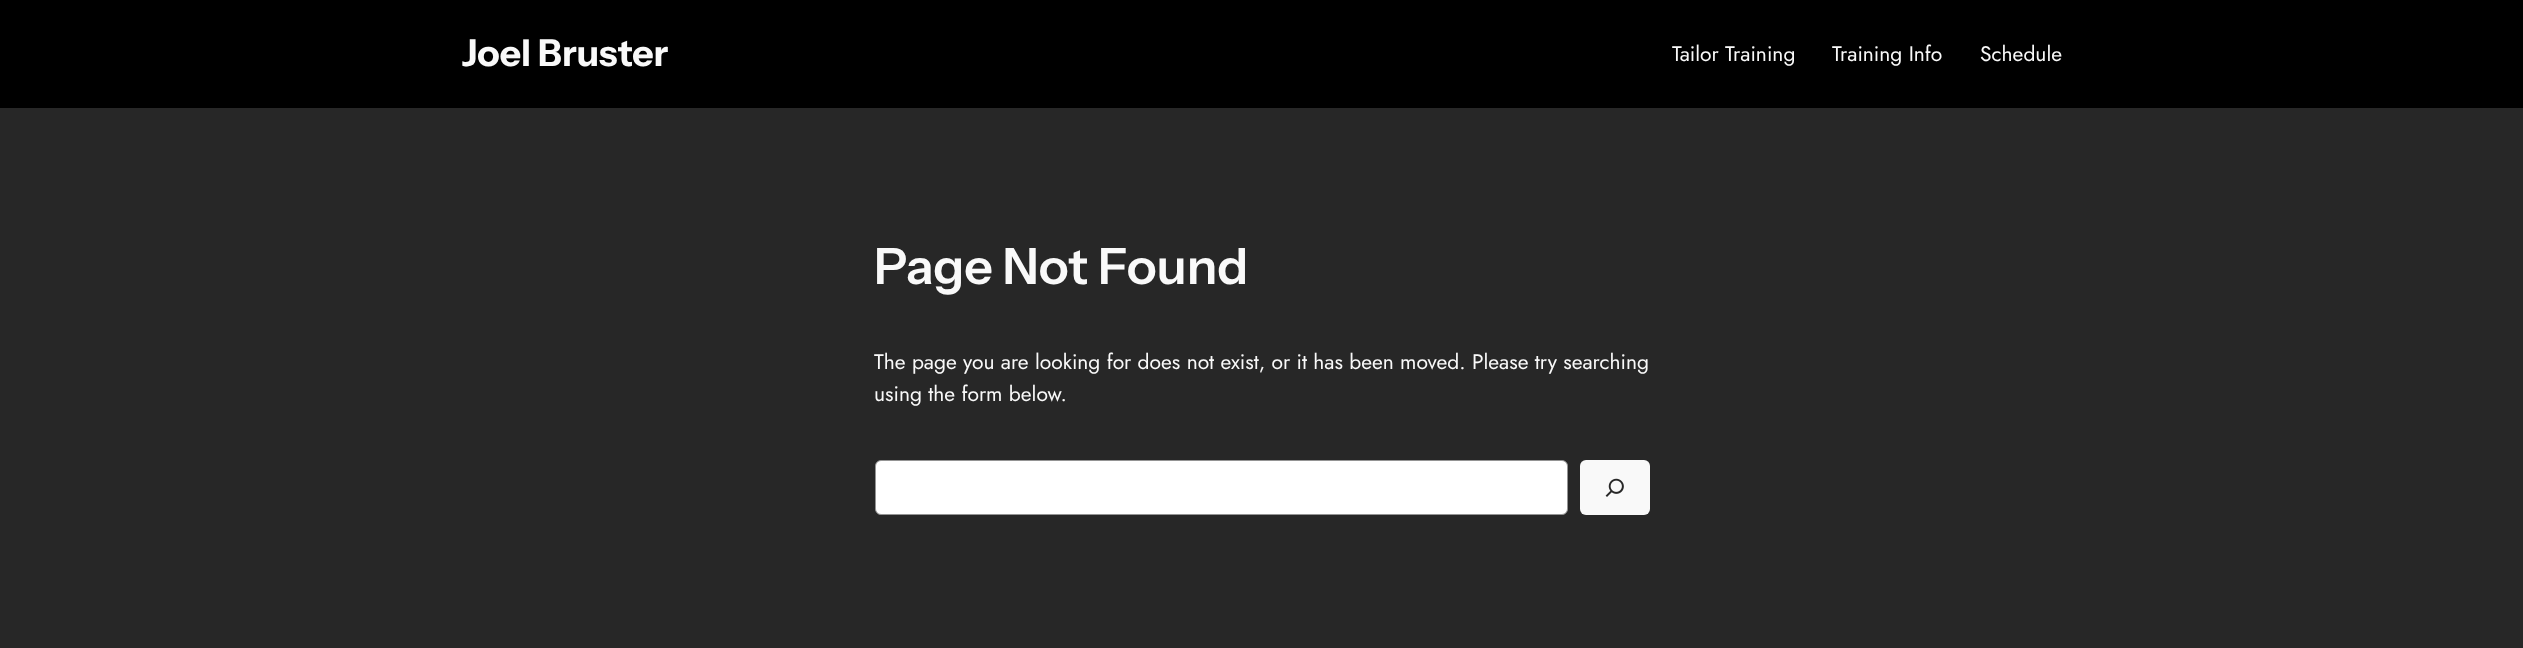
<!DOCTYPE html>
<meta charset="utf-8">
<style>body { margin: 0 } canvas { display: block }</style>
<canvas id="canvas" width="2523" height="648"></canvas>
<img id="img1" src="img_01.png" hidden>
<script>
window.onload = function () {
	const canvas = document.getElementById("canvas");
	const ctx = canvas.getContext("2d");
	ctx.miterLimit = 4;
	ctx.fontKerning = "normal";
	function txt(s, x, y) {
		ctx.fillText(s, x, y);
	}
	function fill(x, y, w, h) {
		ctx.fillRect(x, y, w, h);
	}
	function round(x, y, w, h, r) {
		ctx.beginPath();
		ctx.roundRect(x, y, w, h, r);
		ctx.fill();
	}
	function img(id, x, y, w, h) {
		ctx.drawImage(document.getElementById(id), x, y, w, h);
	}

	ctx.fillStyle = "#272727";
	fill(0, 0, 2523, 648);
	ctx.fillStyle = "#000000";
	fill(0, 0, 2523, 108);
	ctx.fillStyle = "#FFFFFF";
	ctx.beginPath();
	ctx.roundRect(875.5, 460.5, 692, 54, 5.5);
	ctx.fill();
	ctx.strokeStyle = "#949494";
	ctx.stroke();
	ctx.fillStyle = "#F9F9F9";
	round(1580, 460, 70, 55, 6);
	img("img1", 1605, 478, 19, 19);
	ctx.font = "bold 37px Instrument Sans";
	txt("Joel Bruster", 462, 66);
	ctx.font = "21px Jost";
	txt("Tailor Training", 1672, 61);
	txt("Training Info", 1832, 61);
	txt("Schedule", 1980, 61);
	ctx.font = "600 50px Instrument Sans";
	txt("Page Not Found", 874, 284);
	ctx.font = "21px Jost";
	txt("The page you are looking for does not exist, or it has been moved. Please try searching", 874, 369);
	txt("using the form below.", 874, 401);
};
</script>
